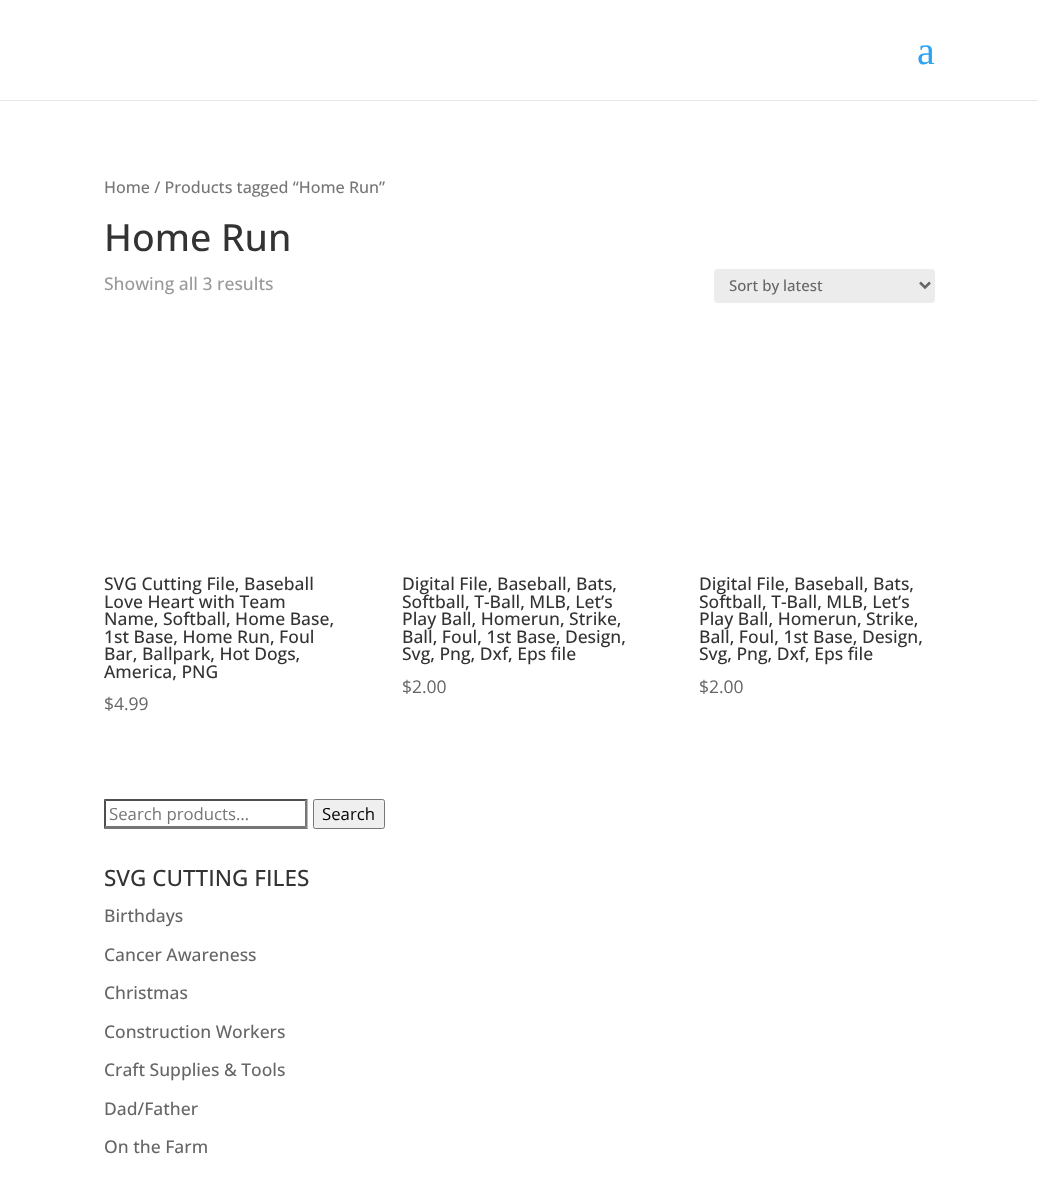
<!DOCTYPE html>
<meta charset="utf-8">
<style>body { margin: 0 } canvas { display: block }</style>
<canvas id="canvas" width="1038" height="1179"></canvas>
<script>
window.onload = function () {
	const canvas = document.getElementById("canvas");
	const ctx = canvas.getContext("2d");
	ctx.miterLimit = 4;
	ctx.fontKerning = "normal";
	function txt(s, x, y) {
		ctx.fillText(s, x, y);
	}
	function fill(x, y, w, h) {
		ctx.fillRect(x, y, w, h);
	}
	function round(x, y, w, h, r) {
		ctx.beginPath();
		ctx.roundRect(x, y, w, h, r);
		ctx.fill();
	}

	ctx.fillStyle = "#FFFFFF";
	fill(0, 0, 1038, 1179);
	ctx.fillStyle = "#E6E6E6";
	ctx.beginPath();
	ctx.moveTo(0, 100);
	ctx.lineTo(0, 101);
	ctx.lineTo(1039, 101);
	ctx.lineTo(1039, 1);
	ctx.lineTo(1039, 100);
	ctx.closePath();
	ctx.fill();
	ctx.fillStyle = "#ECECEC";
	round(714, 269, 221, 34, 4);
	ctx.beginPath();
	ctx.moveTo(920, 282.5);
	ctx.lineTo(925, 287.5);
	ctx.lineTo(930, 282.5);
	ctx.strokeStyle = "#666666";
	ctx.lineWidth = 2.5;
	ctx.stroke();
	ctx.fillStyle = "#4F4F4F";
	ctx.beginPath();
	ctx.moveTo(104, 799);
	ctx.lineTo(308, 799);
	ctx.lineTo(305, 801);
	ctx.lineTo(106, 801);
	ctx.closePath();
	ctx.fill();
	ctx.fillStyle = "#767676";
	ctx.beginPath();
	ctx.moveTo(307.5, 799);
	ctx.lineTo(307.5, 829);
	ctx.lineTo(305, 826);
	ctx.lineTo(305, 801);
	ctx.closePath();
	ctx.fill();
	ctx.beginPath();
	ctx.moveTo(308, 829);
	ctx.lineTo(104, 829);
	ctx.lineTo(106, 826);
	ctx.lineTo(305, 826);
	ctx.closePath();
	ctx.fill();
	ctx.fillStyle = "#4F4F4F";
	ctx.beginPath();
	ctx.moveTo(104, 829);
	ctx.lineTo(104, 799);
	ctx.lineTo(106, 801);
	ctx.lineTo(106, 826);
	ctx.closePath();
	ctx.fill();
	ctx.fillStyle = "#EFEFEF";
	ctx.beginPath();
	ctx.roundRect(313.5, 799.5, 71, 29, 2);
	ctx.fill();
	ctx.strokeStyle = "#767676";
	ctx.lineWidth = 1;
	ctx.stroke();
	ctx.font = "40px Liberation Serif";
	ctx.fillStyle = "#2EA3F2";
	txt("a", 917, 64);
	ctx.font = "500 16.1px Open Sans";
	ctx.fillStyle = "#767676";
	txt("Home / Products tagged “Home Run”", 104, 193);
	ctx.font = "500 37.5px Open Sans";
	ctx.fillStyle = "#333333";
	txt("Home Run", 104, 251);
	ctx.font = "500 17.5px Open Sans";
	ctx.fillStyle = "#999999";
	txt("Showing all 3 results", 104, 290);
	ctx.font = "500 15px Open Sans";
	ctx.fillStyle = "#666666";
	txt("Sort by latest", 729, 291);
	ctx.font = "500 17.5px Open Sans";
	ctx.fillStyle = "#333333";
	txt("SVG Cutting File, Baseball", 104, 590);
	txt("Love Heart with Team", 104, 608);
	txt("Name, Softball, Home Base,", 104, 625);
	txt("1st Base, Home Run, Foul", 104, 643);
	txt("Bar, Ballpark, Hot Dogs,", 104, 660);
	txt("America, PNG", 104, 678);
	ctx.font = "17.5px Open Sans";
	ctx.fillStyle = "#666666";
	txt("$4.99", 104, 710);
	ctx.font = "500 17.5px Open Sans";
	ctx.fillStyle = "#333333";
	txt("Digital File, Baseball, Bats,", 402, 590);
	txt("Softball, T-Ball, MLB, Let’s", 402, 608);
	txt("Play Ball, Homerun, Strike,", 402, 625);
	txt("Ball, Foul, 1st Base, Design,", 402, 643);
	txt("Svg, Png, Dxf, Eps file", 402, 660);
	ctx.font = "17.5px Open Sans";
	ctx.fillStyle = "#666666";
	txt("$2.00", 402, 693);
	ctx.font = "500 17.5px Open Sans";
	ctx.fillStyle = "#333333";
	txt("Digital File, Baseball, Bats,", 699, 590);
	txt("Softball, T-Ball, MLB, Let’s", 699, 608);
	txt("Play Ball, Homerun, Strike,", 699, 625);
	txt("Ball, Foul, 1st Base, Design,", 699, 643);
	txt("Svg, Png, Dxf, Eps file", 699, 660);
	ctx.font = "17.5px Open Sans";
	ctx.fillStyle = "#666666";
	txt("$2.00", 699, 693);
	ctx.font = "16.75px Open Sans";
	ctx.fillStyle = "#767676";
	txt("Search products…", 109, 820);
	ctx.fillStyle = "#000000";
	txt("Search", 322, 820);
	ctx.font = "500 22.5px Open Sans";
	ctx.fillStyle = "#333333";
	txt("SVG CUTTING FILES", 104, 886);
	ctx.font = "500 17.5px Open Sans";
	ctx.fillStyle = "#666666";
	txt("Birthdays", 104, 922);
	txt("Cancer Awareness", 104, 961);
	txt("Christmas", 104, 999);
	txt("Construction Workers", 104, 1038);
	txt("Craft Supplies & Tools", 104, 1076);
	txt("Dad/Father", 104, 1115);
	txt("On the Farm", 104, 1153);
};
</script>
